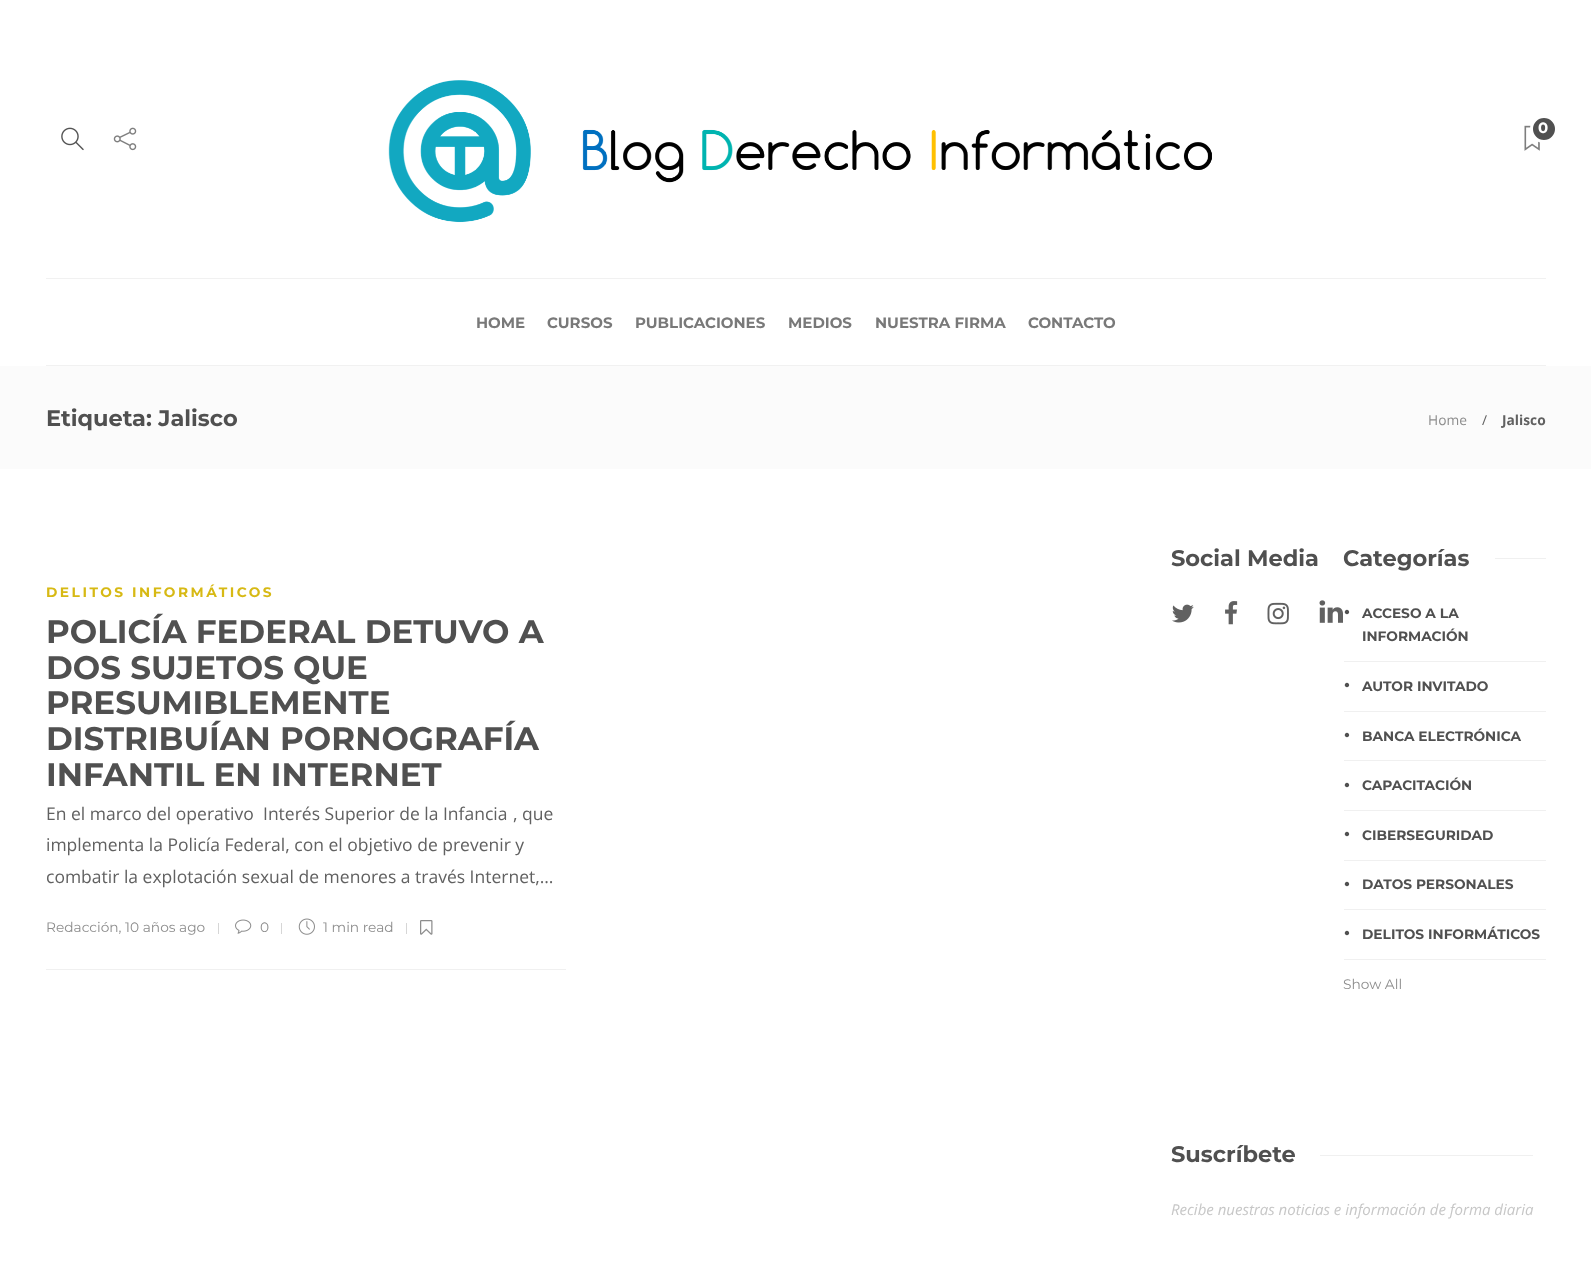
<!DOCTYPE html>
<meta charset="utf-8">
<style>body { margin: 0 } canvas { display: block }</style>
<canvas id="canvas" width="1591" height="1279"></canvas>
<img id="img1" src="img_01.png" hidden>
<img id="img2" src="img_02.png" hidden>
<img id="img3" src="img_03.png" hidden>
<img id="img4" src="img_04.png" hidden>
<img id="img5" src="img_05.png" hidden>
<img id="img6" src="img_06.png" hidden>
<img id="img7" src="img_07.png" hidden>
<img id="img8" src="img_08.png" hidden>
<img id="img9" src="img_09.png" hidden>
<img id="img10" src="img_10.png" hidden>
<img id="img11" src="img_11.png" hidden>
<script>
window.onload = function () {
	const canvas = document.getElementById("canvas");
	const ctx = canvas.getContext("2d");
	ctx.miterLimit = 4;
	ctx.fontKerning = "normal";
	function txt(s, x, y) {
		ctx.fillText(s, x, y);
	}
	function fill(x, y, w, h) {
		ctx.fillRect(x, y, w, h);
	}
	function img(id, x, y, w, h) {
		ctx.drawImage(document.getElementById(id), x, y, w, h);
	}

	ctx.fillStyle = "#FFFFFF";
	fill(0, 0, 1591, 1279);
	img("img1", 61, 127, 23, 24);
	img("img2", 113, 127, 24, 24);
	img("img3", 388, 80, 824, 143);
	img("img4", 1524, 125, 16, 26);
	ctx.fillStyle = "#505050";
	ctx.beginPath();
	ctx.arc(1544, 129, 12.5, 0, Math.PI * 2);
	ctx.fill();
	ctx.strokeStyle = "#FFFFFF";
	ctx.lineWidth = 3;
	ctx.stroke();
	ctx.fillStyle = "#F1F1F1";
	fill(46, 278, 1500, 1);
	fill(46, 365, 1500, 1);
	ctx.fillStyle = "#FBFBFB";
	fill(0, 366, 1591, 103);
	ctx.fillStyle = "#F0F0F0";
	fill(46, 969, 520, 1);
	ctx.fillStyle = "#D6D6D6";
	fill(218, 923, 1, 11);
	img("img5", 235, 919, 17, 15);
	fill(281, 923, 1, 11);
	img("img6", 298, 918, 17, 17);
	fill(406, 923, 1, 11);
	img("img7", 420, 920, 13, 15);
	img("img8", 1172, 604, 22, 19);
	img("img9", 1225, 601, 13, 24);
	img("img10", 1267, 602, 22, 23);
	img("img11", 1319, 600, 24, 23);
	ctx.fillStyle = "#F0F0F0";
	fill(1495, 558, 51, 1);
	fill(1344, 661, 202, 1);
	fill(1344, 711, 202, 1);
	fill(1344, 760, 202, 1);
	fill(1344, 810, 202, 1);
	fill(1344, 860, 202, 1);
	fill(1344, 909, 202, 1);
	fill(1344, 959, 202, 1);
	fill(1320, 1155, 213, 1);
	ctx.font = "bold 15px Montserrat";
	ctx.fillStyle = "#FFFFFF";
	txt("0", 1538, 133);
	ctx.fillStyle = "#797979";
	txt("HOME", 476, 328);
	txt("CURSOS", 547, 328);
	txt("PUBLICACIONES", 635, 328);
	txt("MEDIOS", 788, 328);
	txt("NUESTRA FIRMA", 875, 328);
	txt("CONTACTO", 1028, 328);
	ctx.font = "bold 22.5px Montserrat";
	ctx.fillStyle = "#505050";
	txt("Etiqueta: Jalisco", 46, 426);
	ctx.font = "13.75px Open Sans";
	ctx.fillStyle = "#8D8D8D";
	txt("Home", 1428, 425);
	ctx.fillStyle = "#616161";
	txt("/", 1482, 425);
	ctx.font = "bold 13.75px Open Sans";
	txt("Jalisco", 1502, 425);
	ctx.letterSpacing = "2.5px";
	ctx.font = "bold 13.75px Montserrat";
	ctx.fillStyle = "#D7B914";
	txt("DELITOS INFORMÁTICOS", 46, 597);
	ctx.letterSpacing = "0px";
	ctx.font = "bold 32.5px Montserrat";
	ctx.fillStyle = "#505050";
	txt("POLICÍA FEDERAL DETUVO A", 46, 643);
	txt("DOS SUJETOS QUE", 46, 679);
	txt("PRESUMIBLEMENTE", 46, 714);
	txt("DISTRIBUÍAN PORNOGRAFÍA", 46, 750);
	txt("INFANTIL EN INTERNET", 46, 786);
	ctx.font = "17.5px Open Sans";
	ctx.fillStyle = "#616161";
	txt("En el marco del operativo", 46, 820);
	txt("Interés Superior de la Infancia", 263, 820);
	txt(", que", 513, 820);
	txt("implementa la Policía Federal, con el objetivo de prevenir y", 46, 851);
	txt("combatir la explotación sexual de menores a través Internet,…", 46, 883);
	ctx.font = "13.75px Montserrat";
	ctx.fillStyle = "#8D8D8D";
	txt("Redacción, 10 años ago", 46, 932);
	txt("0", 260, 932);
	txt("1 min read", 323, 932);
	ctx.font = "bold 22.5px Montserrat";
	ctx.fillStyle = "#505050";
	txt("Social Media", 1171, 566);
	txt("Categorías", 1343, 566);
	txt(".", 1344, 614);
	ctx.font = "bold 13.75px Montserrat";
	txt("ACCESO A LA", 1362, 618);
	txt("INFORMACIÓN", 1362, 641);
	ctx.font = "bold 22.5px Montserrat";
	txt(".", 1344, 687);
	ctx.font = "bold 13.75px Montserrat";
	txt("AUTOR INVITADO", 1362, 691);
	ctx.font = "bold 22.5px Montserrat";
	txt(".", 1344, 737);
	ctx.font = "bold 13.75px Montserrat";
	txt("BANCA ELECTRÓNICA", 1362, 741);
	ctx.font = "bold 22.5px Montserrat";
	txt(".", 1344, 787);
	ctx.font = "bold 13.75px Montserrat";
	txt("CAPACITACIÓN", 1362, 790);
	ctx.font = "bold 22.5px Montserrat";
	txt(".", 1344, 836);
	ctx.font = "bold 13.75px Montserrat";
	txt("CIBERSEGURIDAD", 1362, 840);
	ctx.font = "bold 22.5px Montserrat";
	txt(".", 1344, 886);
	ctx.font = "bold 13.75px Montserrat";
	txt("DATOS PERSONALES", 1362, 889);
	ctx.font = "bold 22.5px Montserrat";
	txt(".", 1344, 935);
	ctx.font = "bold 13.75px Montserrat";
	txt("DELITOS INFORMÁTICOS", 1362, 939);
	ctx.font = "13.75px Montserrat";
	ctx.fillStyle = "#8D8D8D";
	txt("Show All", 1343, 989);
	ctx.font = "bold 22.5px Montserrat";
	ctx.fillStyle = "#505050";
	txt("Suscríbete", 1171, 1162);
	ctx.font = "italic 15px Open Sans";
	ctx.fillStyle = "#C7C7C7";
	txt("Recibe nuestras noticias e información de forma diaria", 1171, 1215);
};
</script>
